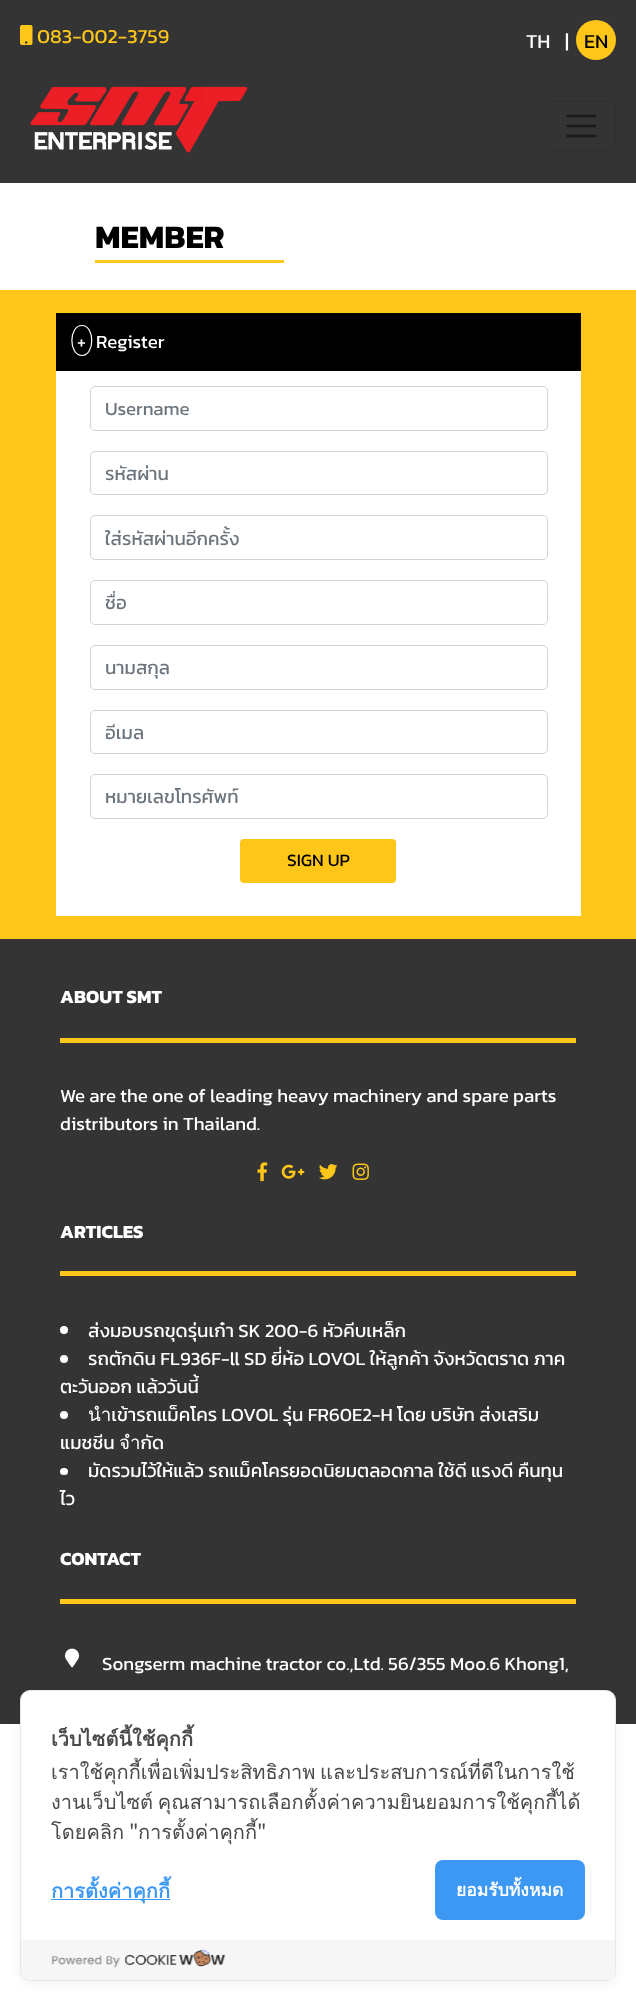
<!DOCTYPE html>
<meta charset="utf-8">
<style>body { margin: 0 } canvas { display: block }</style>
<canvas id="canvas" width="636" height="2001"></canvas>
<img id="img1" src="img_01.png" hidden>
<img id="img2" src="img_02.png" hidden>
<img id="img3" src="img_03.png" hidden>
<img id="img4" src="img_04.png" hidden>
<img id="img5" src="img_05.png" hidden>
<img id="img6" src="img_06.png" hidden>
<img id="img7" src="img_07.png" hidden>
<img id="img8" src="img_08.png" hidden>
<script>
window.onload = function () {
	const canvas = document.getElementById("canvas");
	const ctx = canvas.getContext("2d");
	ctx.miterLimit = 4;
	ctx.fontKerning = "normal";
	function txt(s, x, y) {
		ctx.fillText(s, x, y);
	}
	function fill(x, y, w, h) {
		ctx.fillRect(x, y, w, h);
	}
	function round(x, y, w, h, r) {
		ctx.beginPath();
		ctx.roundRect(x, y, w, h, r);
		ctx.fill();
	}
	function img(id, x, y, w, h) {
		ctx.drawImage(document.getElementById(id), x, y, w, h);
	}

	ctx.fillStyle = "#FFFFFF";
	fill(0, 0, 636, 2001);
	ctx.fillStyle = "#343434";
	fill(0, 0, 636, 183);
	img("img1", 20, 25, 13, 20);
	ctx.fillStyle = "#FEC619";
	ctx.beginPath();
	ctx.arc(596, 40, 20, 0, Math.PI * 2);
	ctx.fill();
	img("img2", 30, 86, 218, 67);
	ctx.beginPath();
	ctx.roundRect(546.5, 101.5, 69, 49, 4.5);
	ctx.strokeStyle = "#2F2F2F";
	ctx.stroke();
	ctx.beginPath();
	ctx.moveTo(567.5, 116);
	ctx.lineTo(595, 116);
	ctx.moveTo(567.5, 126);
	ctx.lineTo(595, 126);
	ctx.moveTo(567.5, 136);
	ctx.lineTo(595, 136);
	ctx.strokeStyle = "#1A1A1A";
	ctx.lineWidth = 2.5;
	ctx.lineCap = "round";
	ctx.stroke();
	fill(95, 260, 189, 3);
	fill(0, 290, 636, 649);
	ctx.fillStyle = "#000000";
	fill(56, 313, 525, 58);
	ctx.beginPath();
	ctx.moveTo(82, 325.5);
	ctx.bezierCurveTo(95, 325.5, 95, 355.5, 82, 355.5);
	ctx.bezierCurveTo(68.5, 355.5, 68.5, 325.5, 82, 325.5);
	ctx.closePath();
	ctx.strokeStyle = "#FFFFFF";
	ctx.lineWidth = 1.2;
	ctx.lineCap = "butt";
	ctx.stroke();
	ctx.fillStyle = "#FFFFFF";
	fill(56, 371, 525, 545);
	ctx.beginPath();
	ctx.roundRect(90.5, 386.5, 457, 44, 4.5);
	ctx.strokeStyle = "#CED4DA";
	ctx.lineWidth = 1;
	ctx.stroke();
	ctx.beginPath();
	ctx.roundRect(90.5, 451.5, 457, 43, 4.5);
	ctx.stroke();
	ctx.beginPath();
	ctx.roundRect(90.5, 515.5, 457, 44, 4.5);
	ctx.stroke();
	ctx.beginPath();
	ctx.roundRect(90.5, 580.5, 457, 44, 4.5);
	ctx.stroke();
	ctx.beginPath();
	ctx.roundRect(90.5, 645.5, 457, 44, 4.5);
	ctx.stroke();
	ctx.beginPath();
	ctx.roundRect(90.5, 710.5, 457, 43, 4.5);
	ctx.stroke();
	ctx.beginPath();
	ctx.roundRect(90.5, 774.5, 457, 44, 4.5);
	ctx.stroke();
	ctx.fillStyle = "#FEC619";
	round(240, 839, 156, 44, 4);
	ctx.fillStyle = "#343434";
	fill(0, 939, 636, 785);
	ctx.fillStyle = "#FEC619";
	fill(60, 1038, 516, 5);
	img("img3", 257, 1162, 11, 20);
	img("img4", 281, 1164, 24, 15);
	img("img5", 319, 1164, 19, 16);
	img("img6", 352, 1163, 17, 17);
	fill(60, 1271, 516, 5);
	ctx.fillStyle = "#FFFFFF";
	ctx.beginPath();
	ctx.arc(64, 1330, 4, 0, Math.PI * 2);
	ctx.fill();
	ctx.beginPath();
	ctx.arc(64, 1359, 4, 0, Math.PI * 2);
	ctx.fill();
	ctx.beginPath();
	ctx.arc(64, 1415, 4, 0, Math.PI * 2);
	ctx.fill();
	round(60, 1468, 8, 7, 3.5);
	ctx.fillStyle = "#FEC619";
	fill(60, 1599, 516, 5);
	img("img7", 65, 1648, 15, 20);
	ctx.fillStyle = "rgba(0, 0, 0, 0.05)";
	ctx.filter = "blur(5px)";
	ctx.beginPath();
	ctx.roundRect(20, 1693, 596, 291, 10);
	ctx.fill();
	ctx.filter = "none";
	ctx.fillStyle = "#FFFFFF";
	ctx.beginPath();
	ctx.roundRect(20.5, 1690.5, 595, 290, 9.5);
	ctx.fill();
	ctx.strokeStyle = "#E8E8E8";
	ctx.stroke();
	ctx.fillStyle = "#3D98F3";
	fill(51, 1899, 119, 1);
	round(435, 1860, 150, 60, 8);
	ctx.fillStyle = "#F6F6F6";
	ctx.beginPath();
	ctx.roundRect(21, 1940, 594, 40, [0, 0, 10, 10]);
	ctx.fill();
	img("img8", 51, 1949, 175, 19);
	ctx.font = "20px Kanit";
	ctx.fillStyle = "#FEC619";
	txt("083-002-3759", 37, 43);
	ctx.fillStyle = "#FFFFFF";
	txt("TH", 526, 48);
	txt("|", 565, 48);
	ctx.fillStyle = "#000000";
	txt("EN", 584, 48);
	ctx.font = "bold 33px Kanit";
	txt("MEMBER", 95, 248);
	ctx.font = "18.75px Kanit";
	ctx.fillStyle = "#FFFFFF";
	txt("+", 77, 348);
	txt("Register", 96, 348);
	ctx.fillStyle = "#6C757D";
	txt("Username", 105, 415);
	txt("รหัสผ่าน", 105, 480);
	ctx.save();
	ctx.beginPath();
	ctx.rect(105, 524, 426, 29);
	ctx.clip();
	txt("ใส่รหัสผ่านอีกครั้ง", 105, 545);
	ctx.restore();
	ctx.save();
	ctx.beginPath();
	ctx.rect(105, 588, 426, 28);
	ctx.clip();
	txt("ชื่อ", 105, 609);
	ctx.restore();
	txt("นามสกุล", 105, 674);
	ctx.save();
	ctx.beginPath();
	ctx.rect(105, 718, 426, 28);
	ctx.clip();
	txt("อีเมล", 105, 739);
	ctx.restore();
	txt("หมายเลขโทรศัพท์", 105, 803);
	ctx.font = "17.5px Kanit";
	ctx.fillStyle = "#000000";
	txt("SIGN UP", 287, 866);
	ctx.font = "bold 18.75px Kanit";
	ctx.fillStyle = "#FFFFFF";
	txt("ABOUT SMT", 60, 1003);
	ctx.font = "18.75px Kanit";
	txt("We are the one of leading heavy machinery and spare parts", 60, 1102);
	txt("distributors in Thailand.", 60, 1130);
	ctx.font = "bold 18.75px Kanit";
	txt("ARTICLES", 60, 1238);
	ctx.font = "18.75px Kanit";
	txt("ส่งมอบรถขุดรุ่นเก๋า SK 200-6 หัวคีบเหล็ก", 88, 1337);
	txt("รถตักดิน FL936F-ll SD ยี่ห้อ LOVOL ให้ลูกค้า จังหวัดตราด ภาค", 88, 1365);
	txt("ตะวันออก แล้ววันนี้", 60, 1393);
	txt("นำเข้ารถแม็คโคร LOVOL รุ่น FR60E2-H โดย บริษัท ส่งเสริม", 88, 1421);
	txt("แมชชีน จำกัด", 60, 1449);
	txt("มัดรวมไว้ให้แล้ว รถแม็คโครยอดนิยมตลอดกาล ใช้ดี แรงดี คืนทุน", 88, 1477);
	txt("ไว", 60, 1505);
	ctx.font = "bold 18.75px Kanit";
	txt("CONTACT", 60, 1565);
	ctx.font = "18.75px Kanit";
	txt("Songserm machine tractor co.,Ltd. 56/355 Moo.6 Khong1,", 102, 1670);
	ctx.font = "bold 20px Loma";
	ctx.fillStyle = "#4A4A4A";
	txt("เว็บไซต์นี้ใช้คุกกี้", 51, 1746);
	ctx.wordSpacing = "-2px";
	ctx.font = "20px Loma";
	txt("เราใช้คุกกี้เพื่อเพิ่มประสิทธิภาพ และประสบการณ์ที่ดีในการใช้", 51, 1779);
	txt("งานเว็บไซต์ คุณสามารถเลือกตั้งค่าความยินยอมการใช้คุกกี้ได้", 51, 1809);
	ctx.wordSpacing = "0px";
	txt("โดยคลิก", 51, 1839);
	ctx.font = "20px Noto Sans JP";
	txt("\"", 129, 1839);
	ctx.font = "20px Loma";
	txt("การตั้งค่าคุกกี้", 138, 1839);
	ctx.font = "20px Noto Sans JP";
	txt("\"", 257, 1839);
	ctx.font = "bold 20px Loma";
	ctx.fillStyle = "#3D98F3";
	txt("การตั้งค่าคุกกี้", 51, 1898);
	ctx.font = "bold 17.5px Loma";
	ctx.fillStyle = "#FFFFFF";
	txt("ยอมรับทั้งหมด", 456, 1896);
};
</script>
